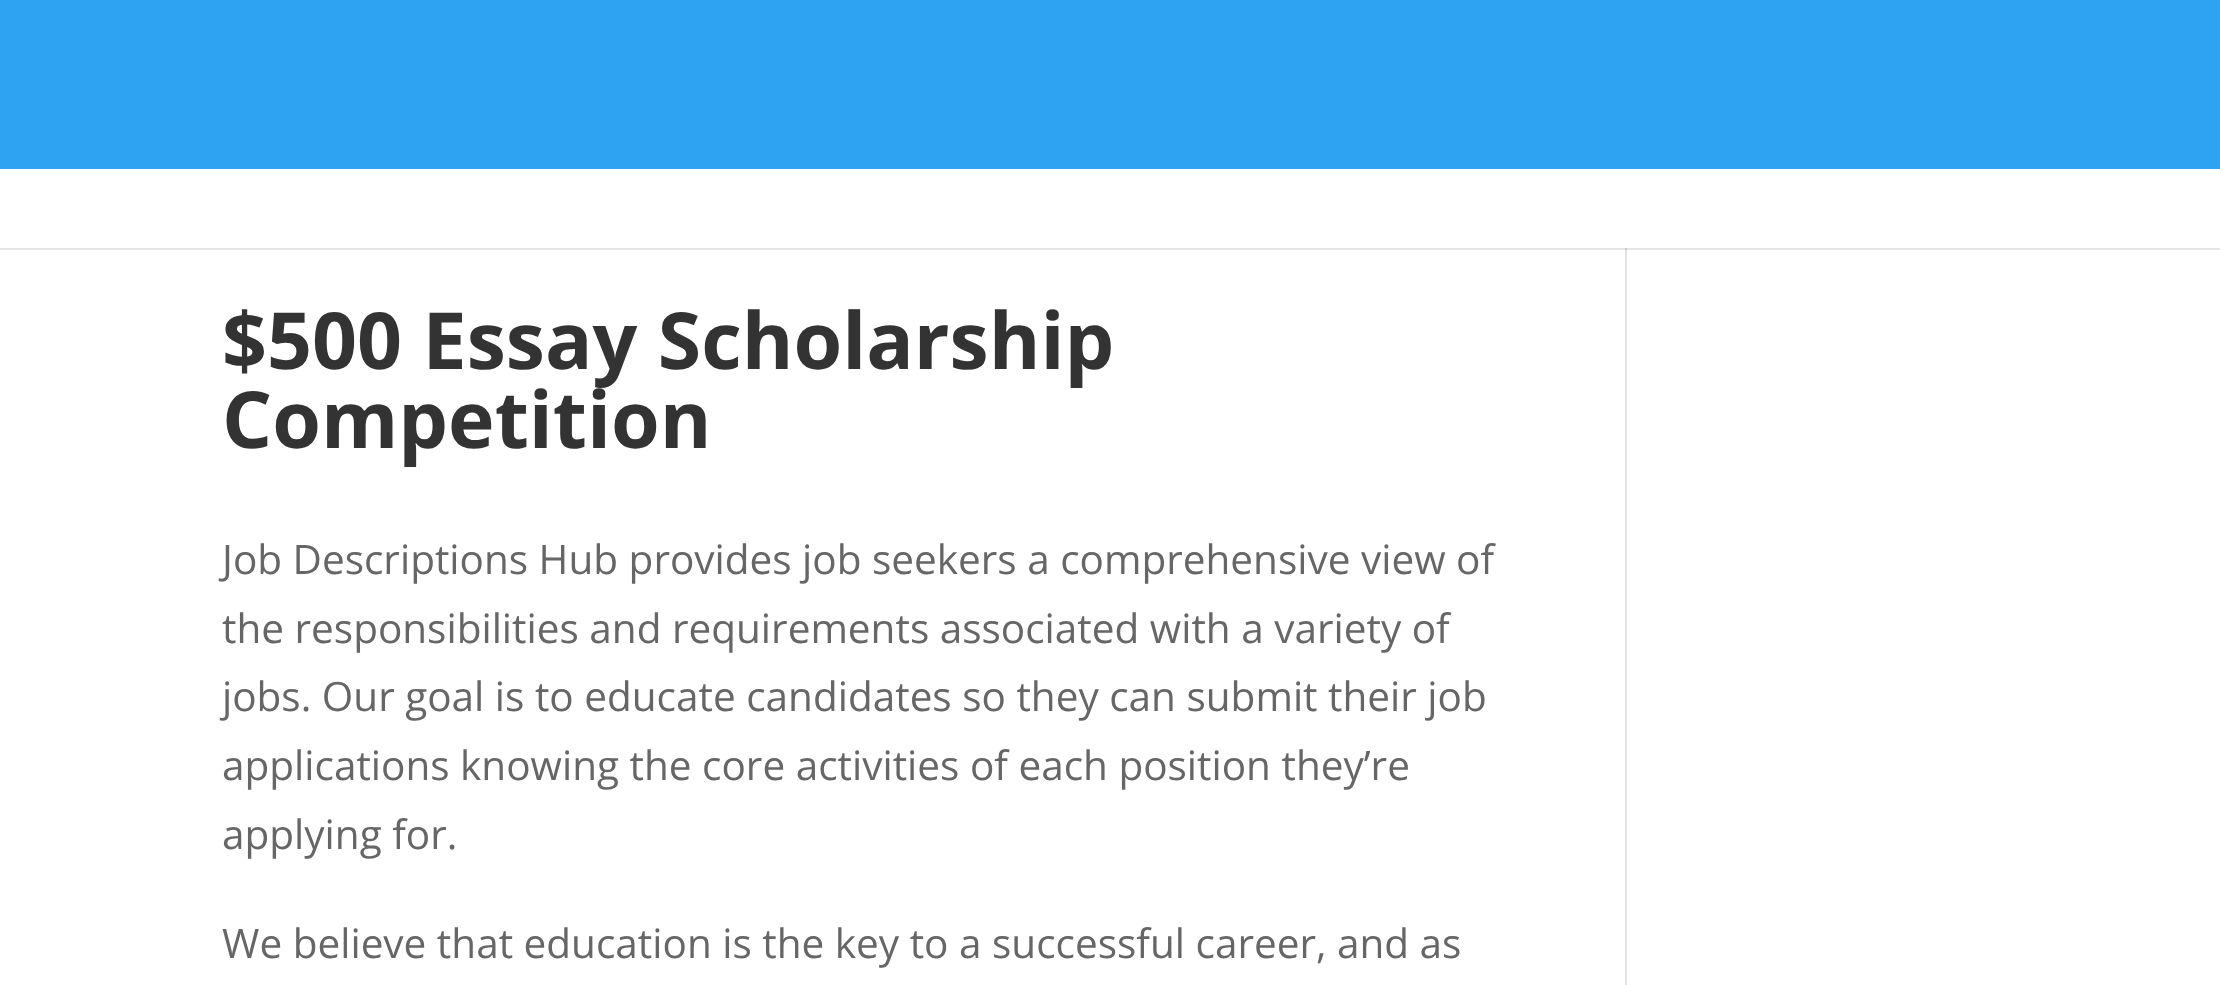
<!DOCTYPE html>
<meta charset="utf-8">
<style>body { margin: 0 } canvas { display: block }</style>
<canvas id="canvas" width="2220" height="985"></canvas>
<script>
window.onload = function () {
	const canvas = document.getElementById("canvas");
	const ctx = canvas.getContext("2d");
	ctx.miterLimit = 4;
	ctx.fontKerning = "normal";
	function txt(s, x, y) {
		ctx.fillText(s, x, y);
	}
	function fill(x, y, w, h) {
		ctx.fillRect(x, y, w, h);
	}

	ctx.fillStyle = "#FFFFFF";
	fill(0, 0, 2220, 985);
	ctx.fillStyle = "#2EA3F2";
	fill(0, 0, 2220, 169);
	ctx.fillStyle = "#E2E2E2";
	fill(1625, 248, 2, 737);
	ctx.fillStyle = "rgba(0, 0, 0, 0.1)";
	ctx.beginPath();
	ctx.moveTo(0, 248);
	ctx.lineTo(0, 250);
	ctx.lineTo(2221, 250);
	ctx.lineTo(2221, 70);
	ctx.lineTo(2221, 248);
	ctx.closePath();
	ctx.fill();
	ctx.font = "bold 78.75px Open Sans";
	ctx.fillStyle = "#333333";
	txt("$500 Essay Scholarship", 222, 369);
	txt("Competition", 222, 448);
	ctx.font = "40.5px Open Sans";
	ctx.fillStyle = "#666666";
	txt("Job Descriptions Hub provides job seekers a comprehensive view of", 222, 574);
	txt("the responsibilities and requirements associated with a variety of", 222, 643);
	txt("jobs. Our goal is to educate candidates so they can submit their job", 222, 711);
	txt("applications knowing the core activities of each position they’re", 222, 780);
	txt("applying for.", 222, 849);
	txt("We believe that education is the key to a successful career, and as", 222, 958);
};
</script>
